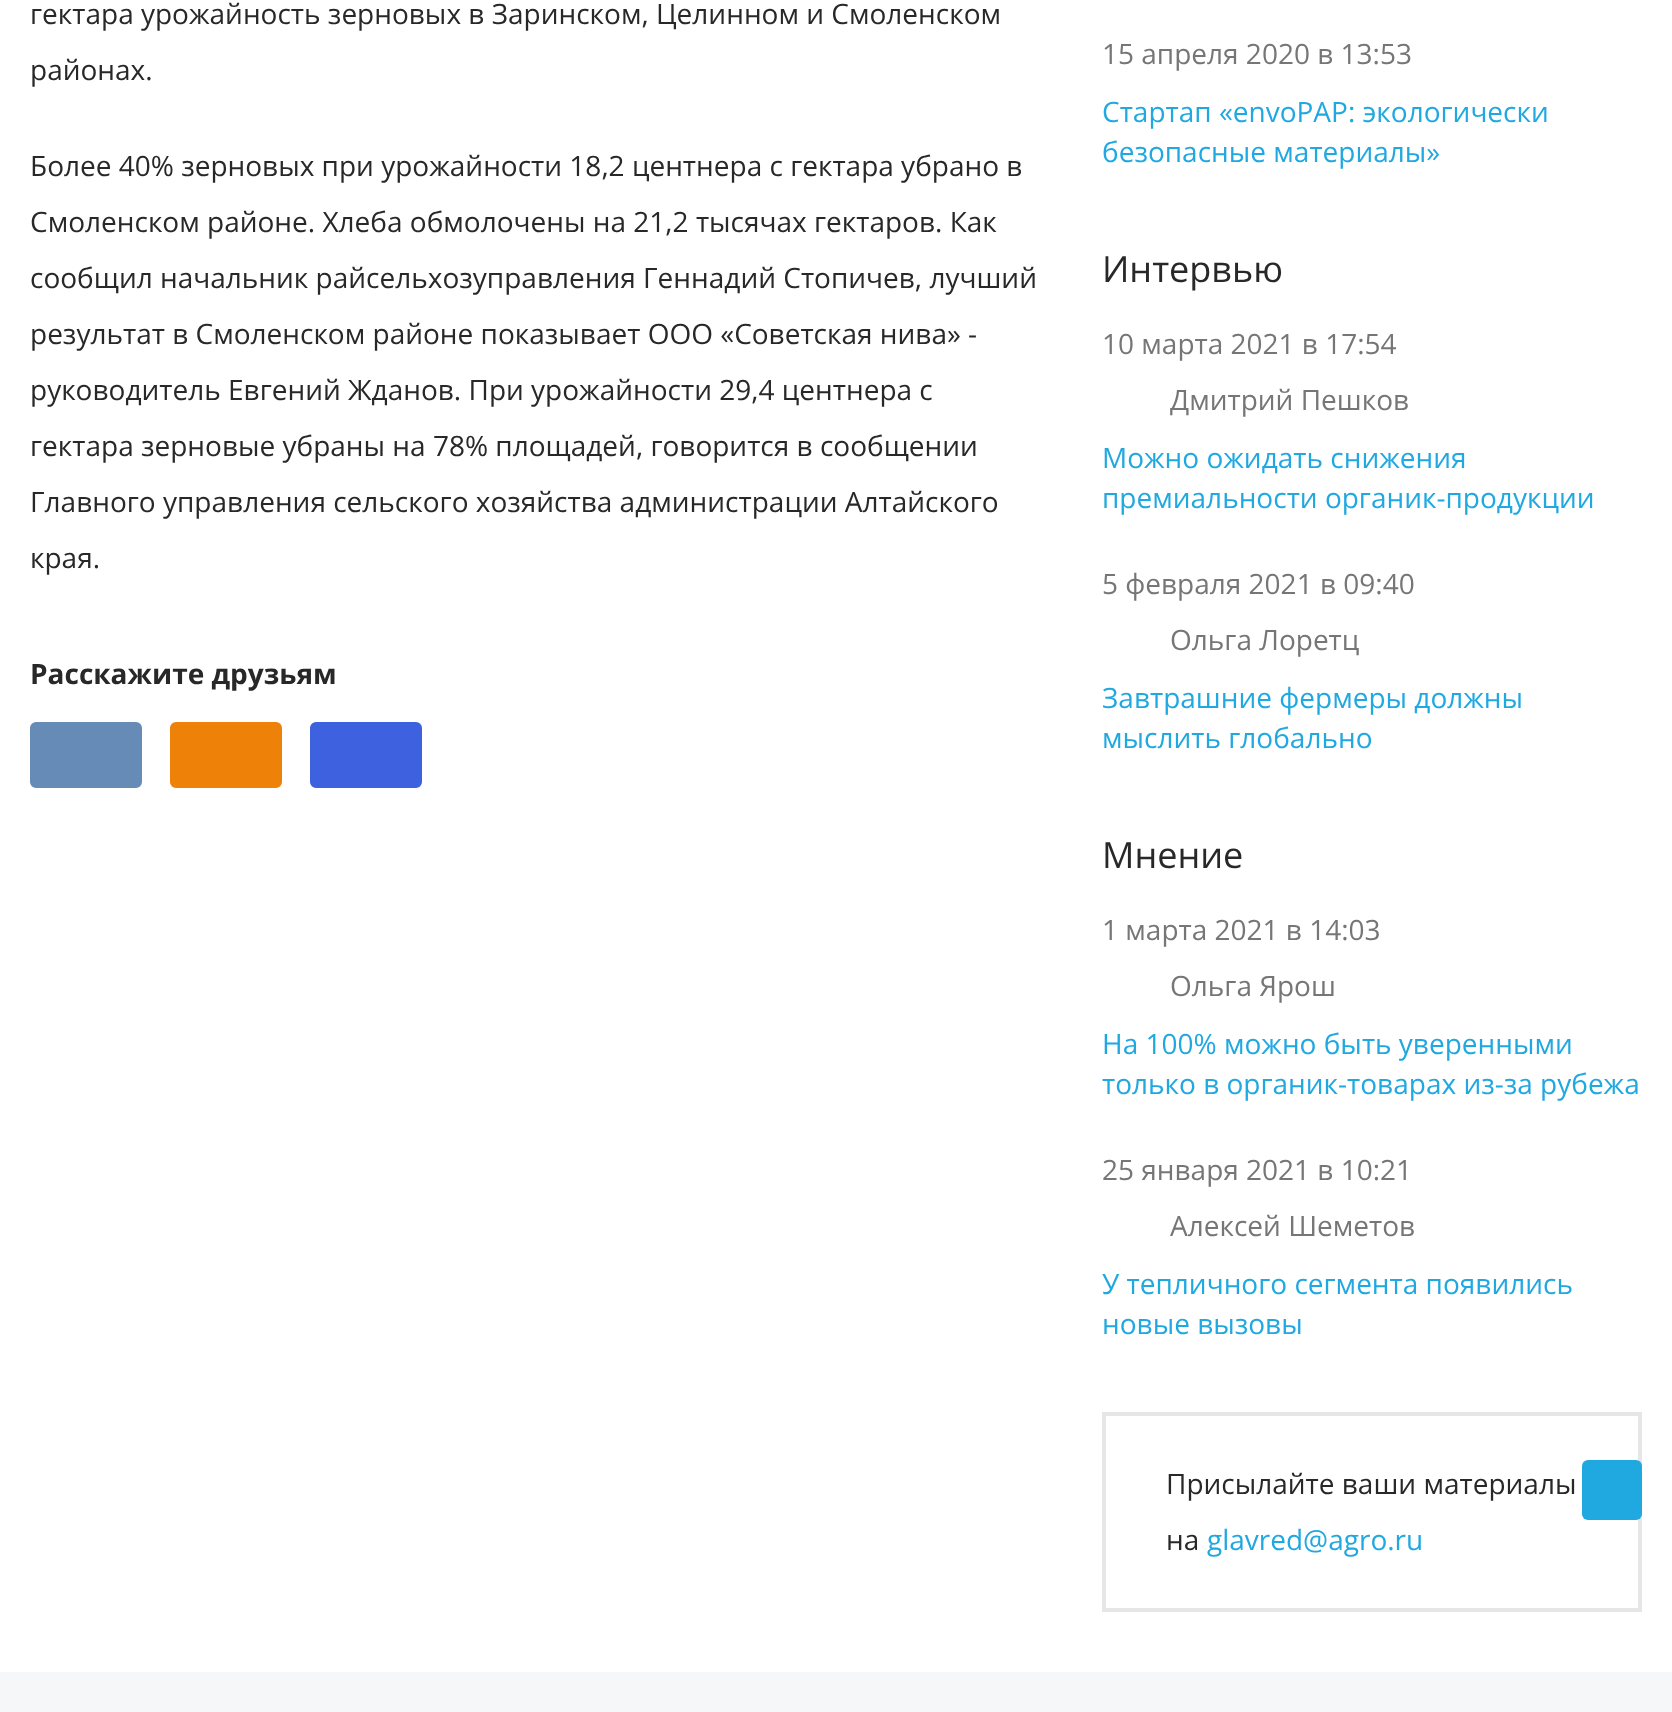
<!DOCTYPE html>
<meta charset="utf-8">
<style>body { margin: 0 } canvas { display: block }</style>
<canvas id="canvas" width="1672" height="1712"></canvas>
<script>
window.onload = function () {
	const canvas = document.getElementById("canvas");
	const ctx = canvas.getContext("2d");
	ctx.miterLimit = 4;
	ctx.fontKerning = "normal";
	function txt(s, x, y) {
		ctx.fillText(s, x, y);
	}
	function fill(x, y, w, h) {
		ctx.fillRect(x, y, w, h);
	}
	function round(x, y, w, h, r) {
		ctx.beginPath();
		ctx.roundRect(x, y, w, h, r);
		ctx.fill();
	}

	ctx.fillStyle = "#FFFFFF";
	fill(0, 0, 1672, 1712);
	ctx.fillStyle = "#658BB6";
	ctx.beginPath();
	ctx.roundRect(31, 723, 110, 64, 5);
	ctx.fill();
	ctx.strokeStyle = "#658BB6";
	ctx.lineWidth = 2;
	ctx.stroke();
	ctx.fillStyle = "#EE8208";
	ctx.beginPath();
	ctx.roundRect(171, 723, 110, 64, 5);
	ctx.fill();
	ctx.strokeStyle = "#EE8208";
	ctx.stroke();
	ctx.fillStyle = "#3E61E0";
	ctx.beginPath();
	ctx.roundRect(311, 723, 110, 64, 5);
	ctx.fill();
	ctx.strokeStyle = "#3E61E0";
	ctx.stroke();
	ctx.strokeStyle = "#E6E6E6";
	ctx.lineWidth = 4;
	ctx.strokeRect(1104, 1414, 536, 196);
	ctx.fillStyle = "#F5F7F8";
	fill(0, 1672, 1672, 40);
	ctx.fillStyle = "#20A8E1";
	round(1582, 1460, 60, 60, 6);
	ctx.font = "28px Open Sans";
	ctx.fillStyle = "#282828";
	txt("гектара урожайность зерновых в Заринском, Целинном и Смоленском", 30, 24);
	txt("районах.", 30, 80);
	txt("Более 40% зерновых при урожайности 18,2 центнера с гектара убрано в", 30, 176);
	txt("Смоленском районе. Хлеба обмолочены на 21,2 тысячах гектаров. Как", 30, 232);
	txt("сообщил начальник райсельхозуправления Геннадий Стопичев, лучший", 30, 288);
	txt("результат в Смоленском районе показывает ООО «Советская нива» -", 30, 344);
	txt("руководитель Евгений Жданов. При урожайности 29,4 центнера с", 30, 400);
	txt("гектара зерновые убраны на 78% площадей, говорится в сообщении", 30, 456);
	txt("Главного управления сельского хозяйства администрации Алтайского", 30, 512);
	txt("края.", 30, 568);
	ctx.font = "bold 28px Open Sans";
	txt("Расскажите друзьям", 30, 684);
	ctx.font = "28px Open Sans";
	ctx.fillStyle = "#767676";
	txt("15 апреля 2020 в 13:53", 1102, 64);
	ctx.fillStyle = "#20A8E1";
	txt("Стартап «envoPAP: экологически", 1102, 122);
	txt("безопасные материалы»", 1102, 162);
	ctx.font = "36px Open Sans";
	ctx.fillStyle = "#282828";
	txt("Интервью", 1102, 282);
	ctx.font = "28px Open Sans";
	ctx.fillStyle = "#767676";
	txt("10 марта 2021 в 17:54", 1102, 354);
	txt("Дмитрий Пешков", 1170, 410);
	ctx.fillStyle = "#20A8E1";
	txt("Можно ожидать снижения", 1102, 468);
	txt("премиальности органик-продукции", 1102, 508);
	ctx.fillStyle = "#767676";
	txt("5 февраля 2021 в 09:40", 1102, 594);
	txt("Ольга Лоретц", 1170, 650);
	ctx.fillStyle = "#20A8E1";
	txt("Завтрашние фермеры должны", 1102, 708);
	txt("мыслить глобально", 1102, 748);
	ctx.font = "36px Open Sans";
	ctx.fillStyle = "#282828";
	txt("Мнение", 1102, 868);
	ctx.font = "28px Open Sans";
	ctx.fillStyle = "#767676";
	txt("1 марта 2021 в 14:03", 1102, 940);
	txt("Ольга Ярош", 1170, 996);
	ctx.fillStyle = "#20A8E1";
	txt("На 100% можно быть уверенными", 1102, 1054);
	txt("только в органик-товарах из-за рубежа", 1102, 1094);
	ctx.fillStyle = "#767676";
	txt("25 января 2021 в 10:21", 1102, 1180);
	txt("Алексей Шеметов", 1170, 1236);
	ctx.fillStyle = "#20A8E1";
	txt("У тепличного сегмента появились", 1102, 1294);
	txt("новые вызовы", 1102, 1334);
	ctx.fillStyle = "#282828";
	txt("Присылайте ваши материалы", 1166, 1494);
	txt("на", 1166, 1550);
	ctx.fillStyle = "#20A8E1";
	txt("glavred@agro.ru", 1207, 1550);
};
</script>
